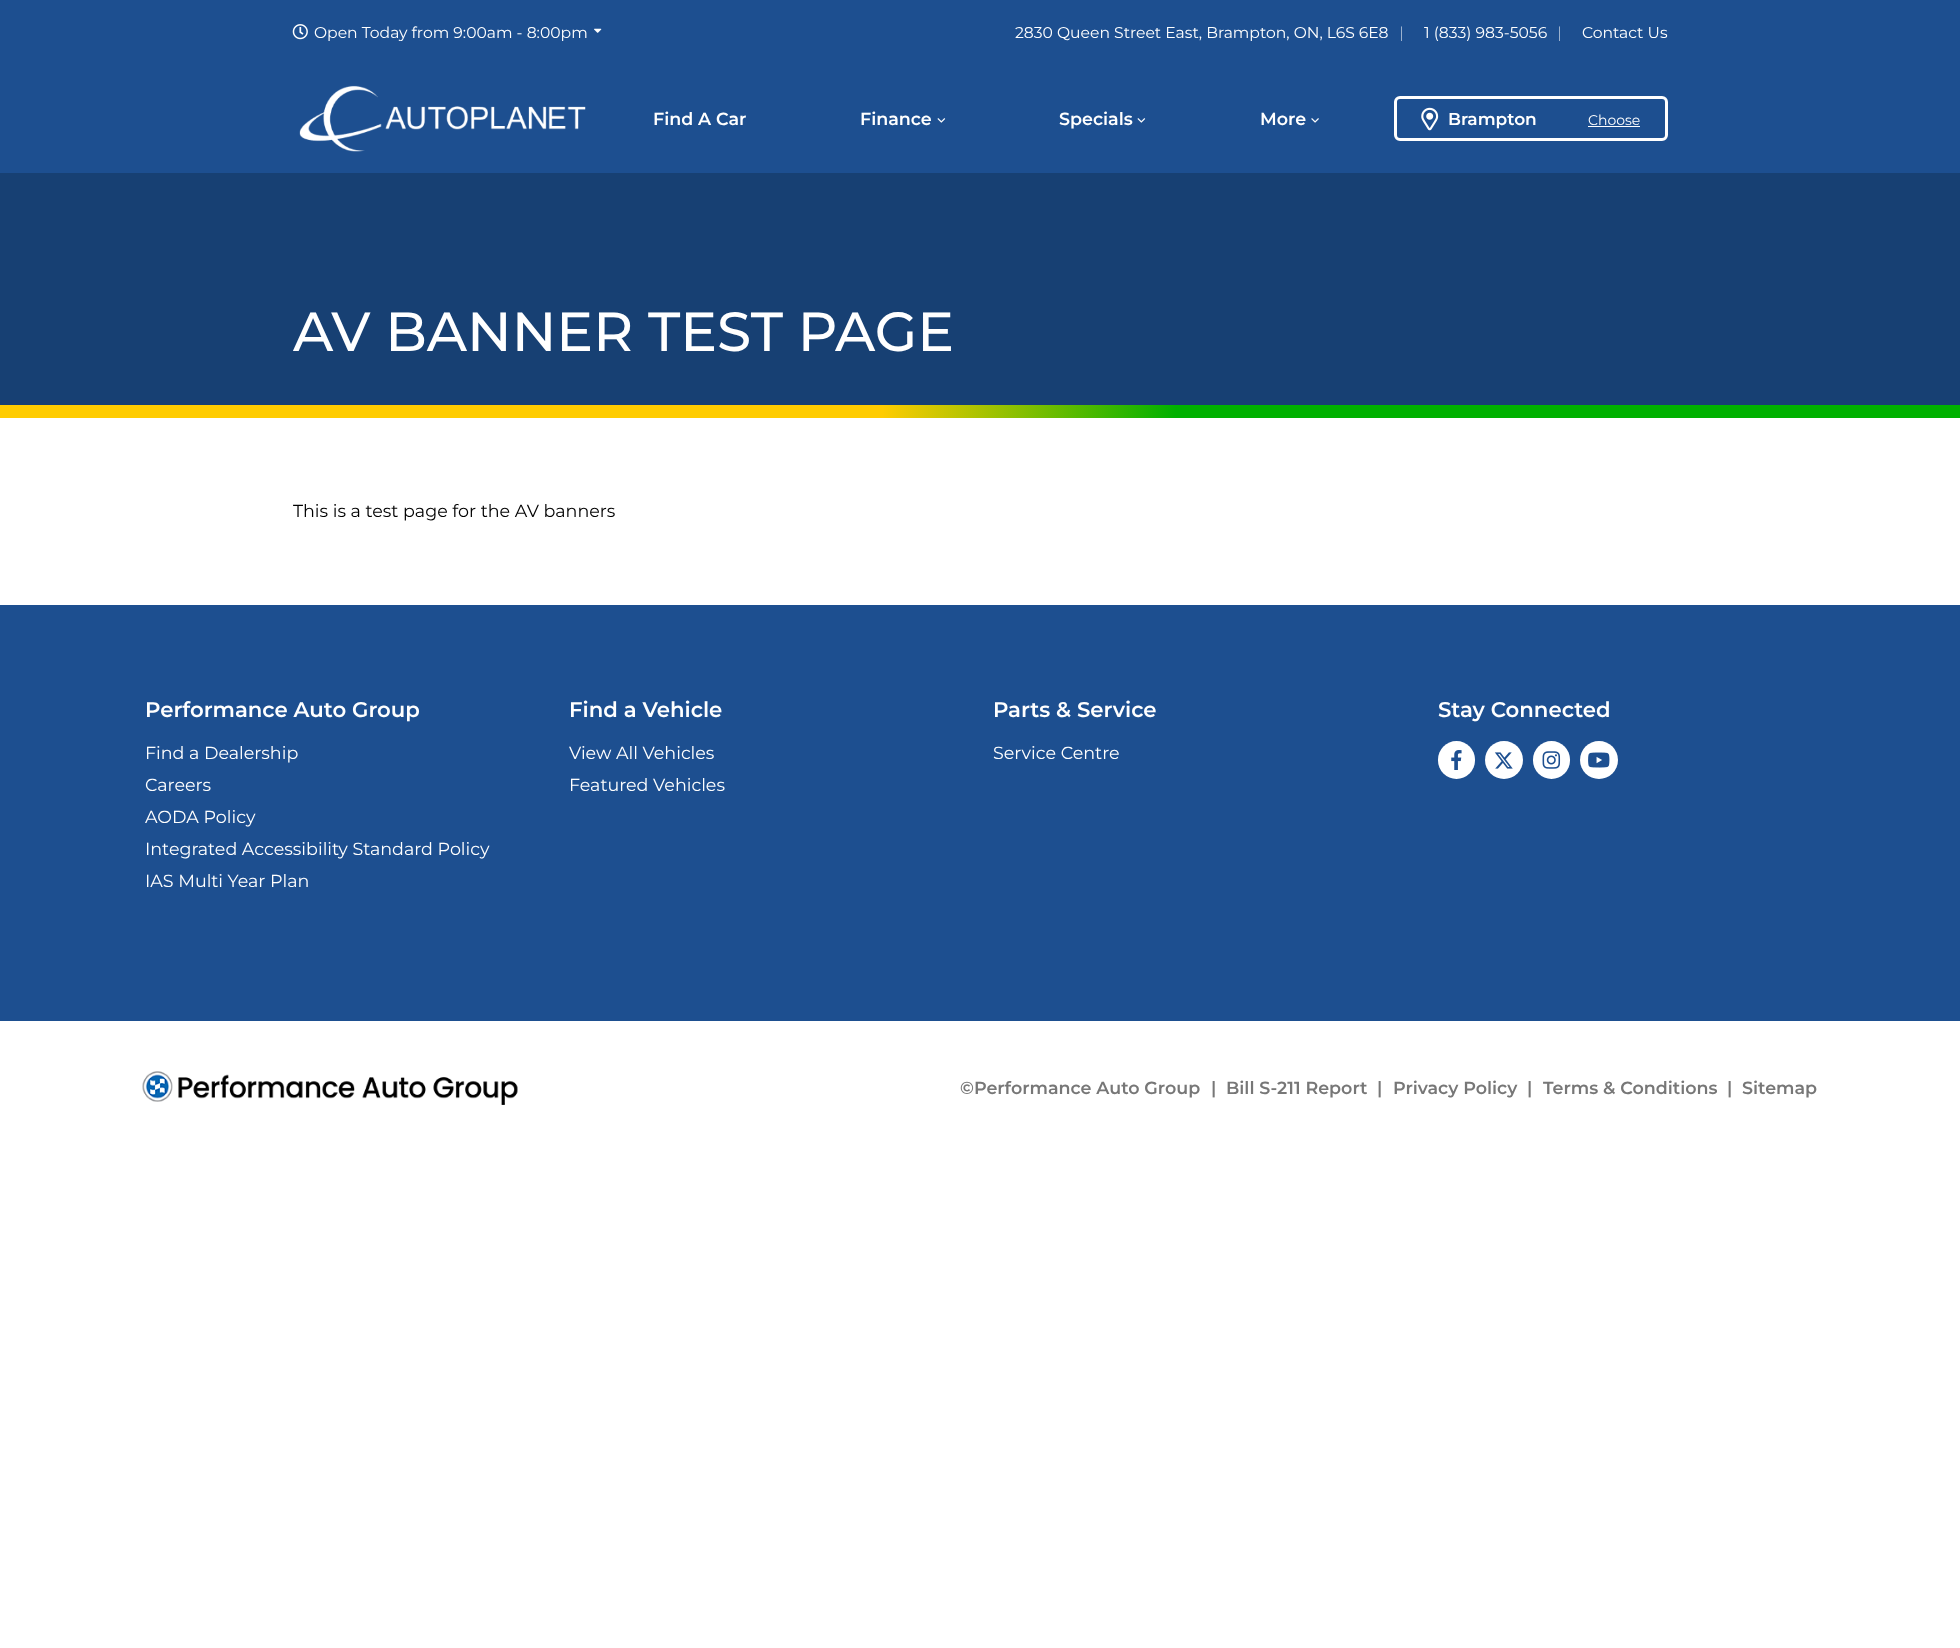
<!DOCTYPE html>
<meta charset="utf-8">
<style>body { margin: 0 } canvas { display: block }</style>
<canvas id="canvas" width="1960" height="1648"></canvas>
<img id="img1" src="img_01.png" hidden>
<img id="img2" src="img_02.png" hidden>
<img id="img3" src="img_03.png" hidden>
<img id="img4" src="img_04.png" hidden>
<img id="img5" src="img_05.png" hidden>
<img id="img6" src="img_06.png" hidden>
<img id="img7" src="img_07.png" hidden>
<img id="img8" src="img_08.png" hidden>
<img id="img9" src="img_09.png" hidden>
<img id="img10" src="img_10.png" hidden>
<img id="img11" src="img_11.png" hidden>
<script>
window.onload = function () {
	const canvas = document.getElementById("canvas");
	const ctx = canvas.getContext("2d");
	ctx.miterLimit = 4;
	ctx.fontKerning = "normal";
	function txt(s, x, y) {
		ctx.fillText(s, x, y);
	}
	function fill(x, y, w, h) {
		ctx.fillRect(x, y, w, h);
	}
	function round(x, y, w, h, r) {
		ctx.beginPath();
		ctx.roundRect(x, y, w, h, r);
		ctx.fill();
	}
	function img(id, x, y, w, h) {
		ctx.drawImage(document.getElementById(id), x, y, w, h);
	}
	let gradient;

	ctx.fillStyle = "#FFFFFF";
	fill(0, 0, 1960, 1648);
	ctx.fillStyle = "#1D4F90";
	fill(0, 0, 1960, 173);
	img("img1", 292, 24, 16, 16);
	img("img2", 594, 28, 8, 5);
	img("img3", 299, 85, 287, 67);
	img("img4", 937, 118, 9, 5);
	img("img4", 1137, 118, 9, 5);
	img("img5", 1311, 118, 8, 5);
	ctx.beginPath();
	ctx.roundRect(1395.5, 97.5, 271, 42, 4.5);
	ctx.strokeStyle = "#FFFFFF";
	ctx.lineWidth = 3;
	ctx.stroke();
	img("img6", 1421, 107, 18, 24);
	ctx.fillStyle = "#FFFFFF";
	fill(1588, 126, 52, 1);
	ctx.fillStyle = "#174073";
	fill(0, 173, 1960, 232);
	gradient = ctx.createLinearGradient(0, 411, 1960, 411);
	gradient.addColorStop(0.45, "#FFCC01");
	gradient.addColorStop(0.6, "#00B100");
	ctx.fillStyle = gradient;
	fill(0, 405, 1960, 13);
	ctx.fillStyle = "#1D4F90";
	fill(0, 605, 1960, 416);
	ctx.fillStyle = "#FFFFFF";
	round(1438, 741, 37, 38, 18.5);
	img("img7", 1451, 750, 11, 20);
	ctx.beginPath();
	ctx.arc(1504, 760, 19, 0, Math.PI * 2);
	ctx.fill();
	img("img8", 1494, 752, 19, 17);
	round(1533, 741, 37, 38, 18.5);
	img("img9", 1542, 751, 19, 18);
	ctx.beginPath();
	ctx.arc(1599, 760, 19, 0, Math.PI * 2);
	ctx.fill();
	img("img10", 1588, 752, 22, 16);
	img("img11", 142, 1071, 376, 34);
	ctx.font = "15.6px Montserrat";
	txt("Open Today from 9:00am - 8:00pm", 314, 38);
	txt("2830 Queen Street East, Brampton, ON, L6S 6E8", 1015, 38);
	ctx.font = "200 15.6px Montserrat";
	txt("|", 1399, 38);
	ctx.font = "15.6px Montserrat";
	txt("1 (833) 983-5056", 1424, 38);
	ctx.font = "200 15.6px Montserrat";
	txt("|", 1557, 38);
	ctx.font = "15.6px Montserrat";
	txt("Contact Us", 1582, 38);
	ctx.font = "600 17.5px Montserrat";
	txt("Find A Car", 653, 125);
	txt("Finance", 860, 125);
	txt("Specials", 1059, 125);
	txt("More", 1260, 125);
	ctx.font = "600 17px Montserrat";
	txt("Brampton", 1448, 125);
	ctx.font = "14px Montserrat";
	txt("Choose", 1588, 125);
	ctx.font = "500 55px Montserrat";
	txt("AV BANNER TEST PAGE", 293, 351);
	ctx.font = "17.5px Montserrat";
	ctx.fillStyle = "#000000";
	txt("This is a test page for the AV banners", 293, 517);
	ctx.font = "600 21.25px Montserrat";
	ctx.fillStyle = "#FFFFFF";
	txt("Performance Auto Group", 145, 717);
	ctx.font = "17.5px Montserrat";
	txt("Find a Dealership", 145, 759);
	txt("Careers", 145, 791);
	txt("AODA Policy", 145, 823);
	txt("Integrated Accessibility Standard Policy", 145, 855);
	txt("IAS Multi Year Plan", 145, 887);
	ctx.font = "600 21.25px Montserrat";
	txt("Find a Vehicle", 569, 717);
	ctx.font = "17.5px Montserrat";
	txt("View All Vehicles", 569, 759);
	txt("Featured Vehicles", 569, 791);
	ctx.font = "600 21.25px Montserrat";
	txt("Parts & Service", 993, 717);
	ctx.font = "17.5px Montserrat";
	txt("Service Centre", 993, 759);
	ctx.font = "600 21.25px Montserrat";
	txt("Stay Connected", 1438, 717);
	ctx.font = "600 17.5px Montserrat";
	ctx.fillStyle = "#777777";
	txt("©Performance Auto Group", 960, 1094);
	txt("|", 1211, 1094);
	txt("Bill S-211 Report", 1226, 1094);
	txt("|", 1377, 1094);
	txt("Privacy Policy", 1393, 1094);
	txt("|", 1527, 1094);
	txt("Terms & Conditions", 1543, 1094);
	txt("|", 1727, 1094);
	txt("Sitemap", 1742, 1094);
};
</script>
